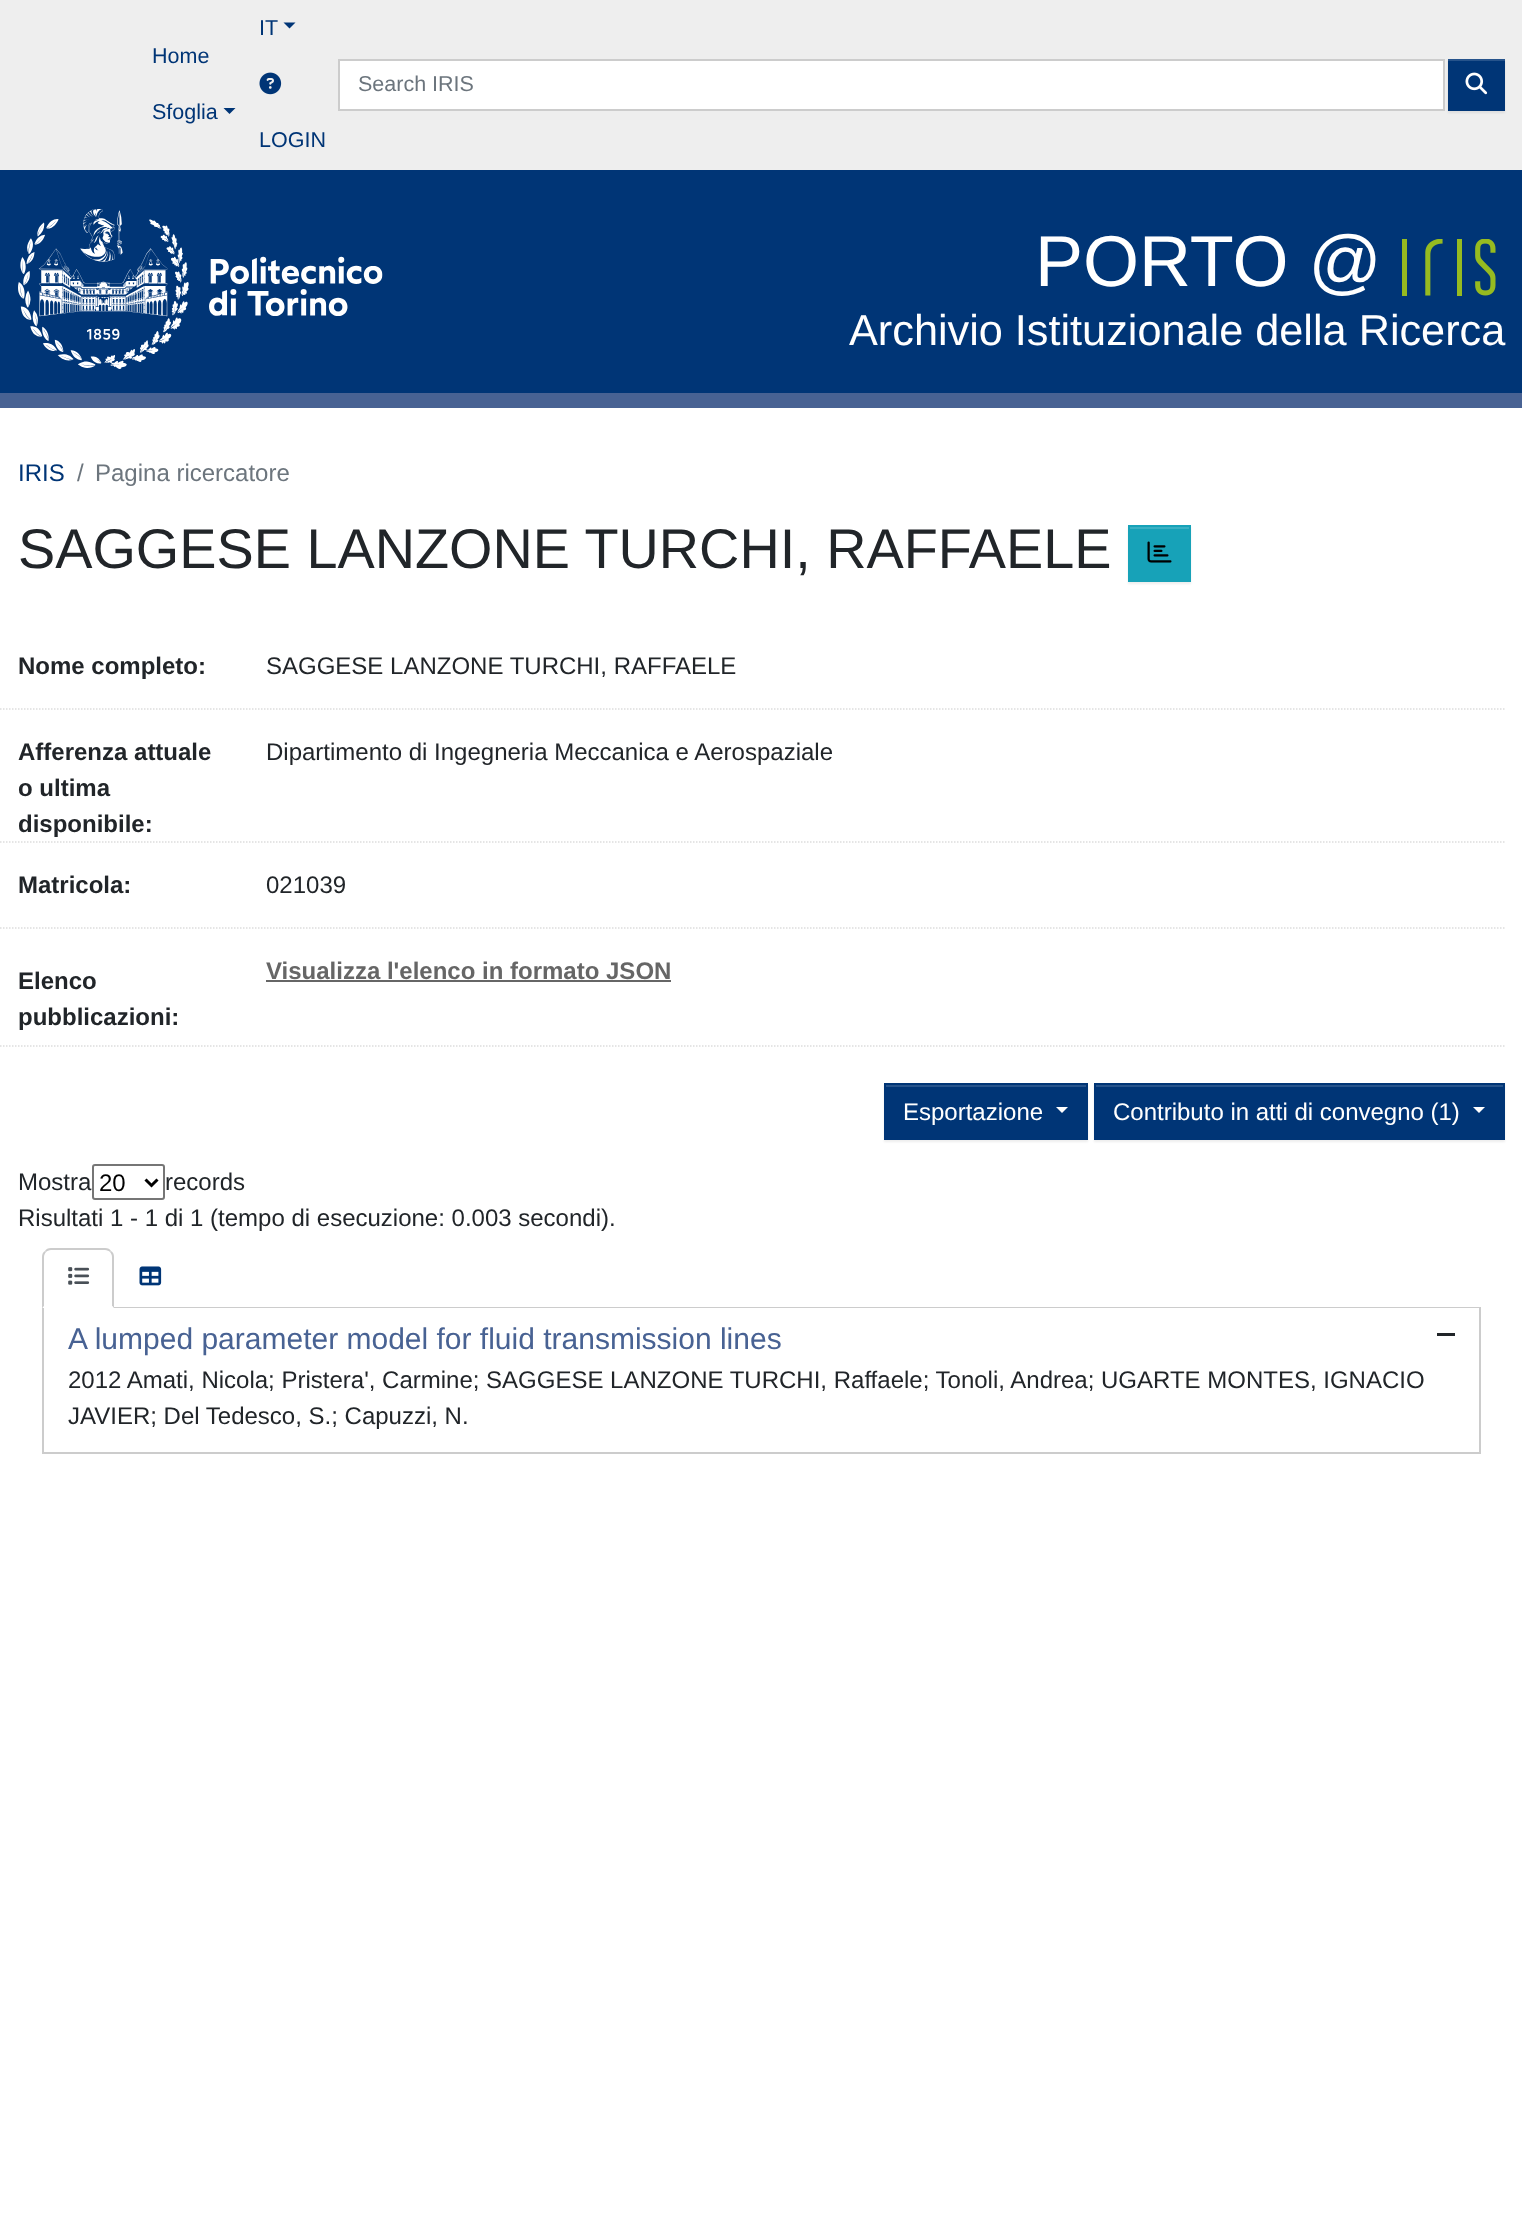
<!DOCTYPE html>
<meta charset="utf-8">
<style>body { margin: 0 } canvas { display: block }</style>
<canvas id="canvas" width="1522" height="2232"></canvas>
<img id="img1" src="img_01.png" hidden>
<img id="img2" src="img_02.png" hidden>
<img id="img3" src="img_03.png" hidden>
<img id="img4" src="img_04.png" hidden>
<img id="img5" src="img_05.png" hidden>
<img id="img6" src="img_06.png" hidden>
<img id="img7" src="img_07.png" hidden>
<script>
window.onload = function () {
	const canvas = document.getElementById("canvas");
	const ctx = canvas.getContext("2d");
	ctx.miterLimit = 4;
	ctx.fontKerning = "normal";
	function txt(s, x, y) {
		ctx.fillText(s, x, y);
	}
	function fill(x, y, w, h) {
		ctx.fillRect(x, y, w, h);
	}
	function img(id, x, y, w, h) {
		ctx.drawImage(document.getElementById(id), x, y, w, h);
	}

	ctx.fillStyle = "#FFFFFF";
	fill(0, 0, 1522, 2232);
	ctx.fillStyle = "#EEEEEE";
	fill(0, 0, 1522, 170);
	ctx.fillStyle = "#003576";
	ctx.beginPath();
	ctx.moveTo(223.5, 108);
	ctx.lineTo(235.5, 108);
	ctx.lineTo(229.5, 114);
	ctx.closePath();
	ctx.fill();
	ctx.beginPath();
	ctx.moveTo(283.5, 22.5);
	ctx.lineTo(295.5, 22.5);
	ctx.lineTo(289.5, 28.5);
	ctx.closePath();
	ctx.fill();
	img("img1", 259, 72, 23, 23);
	ctx.fillStyle = "#FFFFFF";
	ctx.beginPath();
	ctx.rect(339, 60, 1105, 50);
	ctx.fill();
	ctx.strokeStyle = "#CCCCCC";
	ctx.lineWidth = 2;
	ctx.stroke();
	ctx.fillStyle = "rgba(0, 0, 0, 0.07)";
	ctx.filter = "blur(1px)";
	ctx.beginPath();
	ctx.rect(1448, 60, 57, 53);
	ctx.fill();
	ctx.filter = "none";
	ctx.fillStyle = "#003576";
	fill(1448, 61, 57, 50);
	ctx.fillStyle = "#26538B";
	fill(1448, 59, 57, 2);
	img("img2", 1465, 72, 23, 23);
	ctx.fillStyle = "#003576";
	fill(0, 170, 1522, 223);
	ctx.fillStyle = "#486293";
	fill(0, 393, 1522, 15);
	img("img3", 18, 209, 365, 160);
	img("img4", 1402, 239, 94, 57);
	ctx.fillStyle = "rgba(0, 0, 0, 0.07)";
	ctx.filter = "blur(1px)";
	ctx.beginPath();
	ctx.rect(1128, 527, 63, 57);
	ctx.fill();
	ctx.filter = "none";
	ctx.fillStyle = "#17A2B8";
	fill(1130, 529, 59, 51);
	ctx.fillStyle = "#3AB0C3";
	fill(1130, 527, 60, 2);
	ctx.strokeStyle = "#17A2B8";
	ctx.strokeRect(1129, 526, 61, 55);
	img("img5", 1147, 541, 25, 22);
	ctx.beginPath();
	ctx.moveTo(-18, 709);
	ctx.lineTo(1504.5, 709);
	ctx.strokeStyle = "#DDDDDD";
	ctx.lineWidth = 1.5;
	ctx.setLineDash([1.5, 1.5]);
	ctx.stroke();
	ctx.beginPath();
	ctx.moveTo(-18, 842);
	ctx.lineTo(1504.5, 842);
	ctx.stroke();
	ctx.beginPath();
	ctx.moveTo(-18, 928);
	ctx.lineTo(1504.5, 928);
	ctx.stroke();
	ctx.beginPath();
	ctx.moveTo(-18, 1046);
	ctx.lineTo(1504.5, 1046);
	ctx.stroke();
	ctx.fillStyle = "#666666";
	fill(266, 980, 405, 2);
	ctx.fillStyle = "rgba(0, 0, 0, 0.07)";
	ctx.filter = "blur(1px)";
	ctx.beginPath();
	ctx.rect(884, 1085, 204, 57);
	ctx.fill();
	ctx.filter = "none";
	ctx.fillStyle = "#003576";
	fill(886, 1087, 200, 51);
	ctx.fillStyle = "#26538B";
	fill(885, 1085, 201, 2);
	ctx.strokeStyle = "#003576";
	ctx.lineWidth = 2;
	ctx.setLineDash([]);
	ctx.strokeRect(885, 1084, 202, 55);
	ctx.fillStyle = "#FFFFFF";
	ctx.beginPath();
	ctx.moveTo(1056, 1107);
	ctx.lineTo(1068, 1107);
	ctx.lineTo(1062, 1113);
	ctx.closePath();
	ctx.fill();
	ctx.fillStyle = "rgba(0, 0, 0, 0.07)";
	ctx.filter = "blur(1px)";
	ctx.beginPath();
	ctx.rect(1094, 1085, 411, 57);
	ctx.fill();
	ctx.filter = "none";
	ctx.fillStyle = "#003576";
	fill(1096, 1087, 407, 51);
	ctx.fillStyle = "#26538B";
	fill(1095, 1085, 408, 2);
	ctx.strokeRect(1095, 1084, 409, 55);
	ctx.fillStyle = "#FFFFFF";
	ctx.beginPath();
	ctx.moveTo(1473, 1107);
	ctx.lineTo(1485, 1107);
	ctx.lineTo(1479, 1113);
	ctx.closePath();
	ctx.fill();
	ctx.beginPath();
	ctx.roundRect(93, 1165, 71, 34, 2);
	ctx.strokeStyle = "#767676";
	ctx.stroke();
	ctx.beginPath();
	ctx.moveTo(145.5, 1179.5);
	ctx.lineTo(151.5, 1185.5);
	ctx.lineTo(157.5, 1179.5);
	ctx.strokeStyle = "#000000";
	ctx.lineWidth = 3;
	ctx.stroke();
	ctx.fillStyle = "#CCCCCC";
	ctx.beginPath();
	ctx.moveTo(51, 1248);
	ctx.bezierCurveTo(48, 1248, 46, 1249, 45, 1251);
	ctx.lineTo(46, 1252);
	ctx.bezierCurveTo(47, 1251, 49, 1250, 51, 1250);
	ctx.lineTo(105, 1250);
	ctx.bezierCurveTo(107, 1250, 109, 1251, 110, 1252);
	ctx.lineTo(111, 1251);
	ctx.bezierCurveTo(110, 1249, 108, 1248, 105, 1248);
	ctx.closePath();
	ctx.fill();
	ctx.strokeStyle = "#CCCCCC";
	ctx.lineWidth = 2;
	ctx.strokeRect(43, 1308, 1437, 145);
	ctx.beginPath();
	ctx.moveTo(114, 1308);
	ctx.lineTo(114, 1257);
	ctx.bezierCurveTo(114, 1254, 113, 1252, 111, 1251);
	ctx.lineTo(110, 1252);
	ctx.bezierCurveTo(111, 1253, 112, 1255, 112, 1257);
	ctx.lineTo(112, 1306);
	ctx.closePath();
	ctx.fill();
	ctx.fillStyle = "#FFFFFF";
	ctx.beginPath();
	ctx.moveTo(114, 1308);
	ctx.lineTo(112, 1306);
	ctx.lineTo(44, 1306);
	ctx.lineTo(42, 1308);
	ctx.closePath();
	ctx.fill();
	ctx.fillStyle = "#CCCCCC";
	ctx.beginPath();
	ctx.moveTo(42, 1308);
	ctx.lineTo(44, 1306);
	ctx.lineTo(44, 1257);
	ctx.bezierCurveTo(44, 1255, 45, 1253, 46, 1252);
	ctx.lineTo(45, 1251);
	ctx.bezierCurveTo(43, 1252, 42, 1254, 42, 1257);
	ctx.closePath();
	ctx.fill();
	img("img6", 68, 1267, 22, 18);
	img("img7", 139, 1266, 23, 20);
	ctx.fillStyle = "#FFFFFF";
	fill(44, 1308, 1435, 1);
	ctx.fillStyle = "#212529";
	fill(1437, 1333, 18, 3);
	ctx.font = "21.5px Liberation Sans";
	ctx.fillStyle = "#003576";
	txt("Home", 152, 63);
	txt("Sfoglia", 152, 119);
	txt("IT", 259, 35);
	txt("LOGIN", 259, 147);
	ctx.fillStyle = "#6C757D";
	txt("Search IRIS", 358, 91);
	ctx.font = "72px Liberation Sans";
	ctx.fillStyle = "#FFFFFF";
	txt("PORTO @", 1035, 286);
	ctx.font = "43.25px Liberation Sans";
	txt("Archivio Istituzionale della Ricerca", 849, 345);
	ctx.font = "24px Liberation Sans";
	ctx.fillStyle = "#003576";
	txt("IRIS", 18, 481);
	ctx.fillStyle = "#6C757D";
	txt("/", 77, 481);
	txt("Pagina ricercatore", 95, 481);
	ctx.font = "55.8px Liberation Sans";
	ctx.fillStyle = "#212529";
	txt("SAGGESE LANZONE TURCHI, RAFFAELE", 18, 568);
	ctx.font = "bold 24px Liberation Sans";
	txt("Nome completo:", 18, 674);
	ctx.font = "24px Liberation Sans";
	txt("SAGGESE LANZONE TURCHI, RAFFAELE", 266, 674);
	ctx.font = "bold 24px Liberation Sans";
	txt("Afferenza attuale", 18, 760);
	txt("o ultima", 18, 796);
	txt("disponibile:", 18, 832);
	ctx.font = "24px Liberation Sans";
	txt("Dipartimento di Ingegneria Meccanica e Aerospaziale", 266, 760);
	ctx.font = "bold 24px Liberation Sans";
	txt("Matricola:", 18, 893);
	ctx.font = "24px Liberation Sans";
	txt("021039", 266, 893);
	ctx.font = "bold 24px Liberation Sans";
	txt("Elenco", 18, 989);
	txt("pubblicazioni:", 18, 1025);
	ctx.fillStyle = "#666666";
	txt("Visualizza l'elenco in formato JSON", 266, 979);
	ctx.font = "24px Liberation Sans";
	ctx.fillStyle = "#FFFFFF";
	txt("Esportazione", 903, 1120);
	txt("Contributo in atti di convegno (1)", 1113, 1120);
	ctx.fillStyle = "#212529";
	txt("Mostra", 18, 1190);
	ctx.fillStyle = "#000000";
	txt("20", 99, 1191);
	ctx.fillStyle = "#212529";
	txt("records", 165, 1190);
	txt("Risultati 1 - 1 di 1 (tempo di esecuzione: 0.003 secondi).", 18, 1226);
	ctx.font = "30px Liberation Sans";
	ctx.fillStyle = "#486293";
	txt("A lumped parameter model for fluid transmission lines", 68, 1349);
	ctx.font = "24px Liberation Sans";
	ctx.fillStyle = "#212529";
	txt("2012 Amati, Nicola; Pristera', Carmine; SAGGESE LANZONE TURCHI, Raffaele; Tonoli, Andrea; UGARTE MONTES, IGNACIO", 68, 1388);
	txt("JAVIER; Del Tedesco, S.; Capuzzi, N.", 68, 1424);
};
</script>
